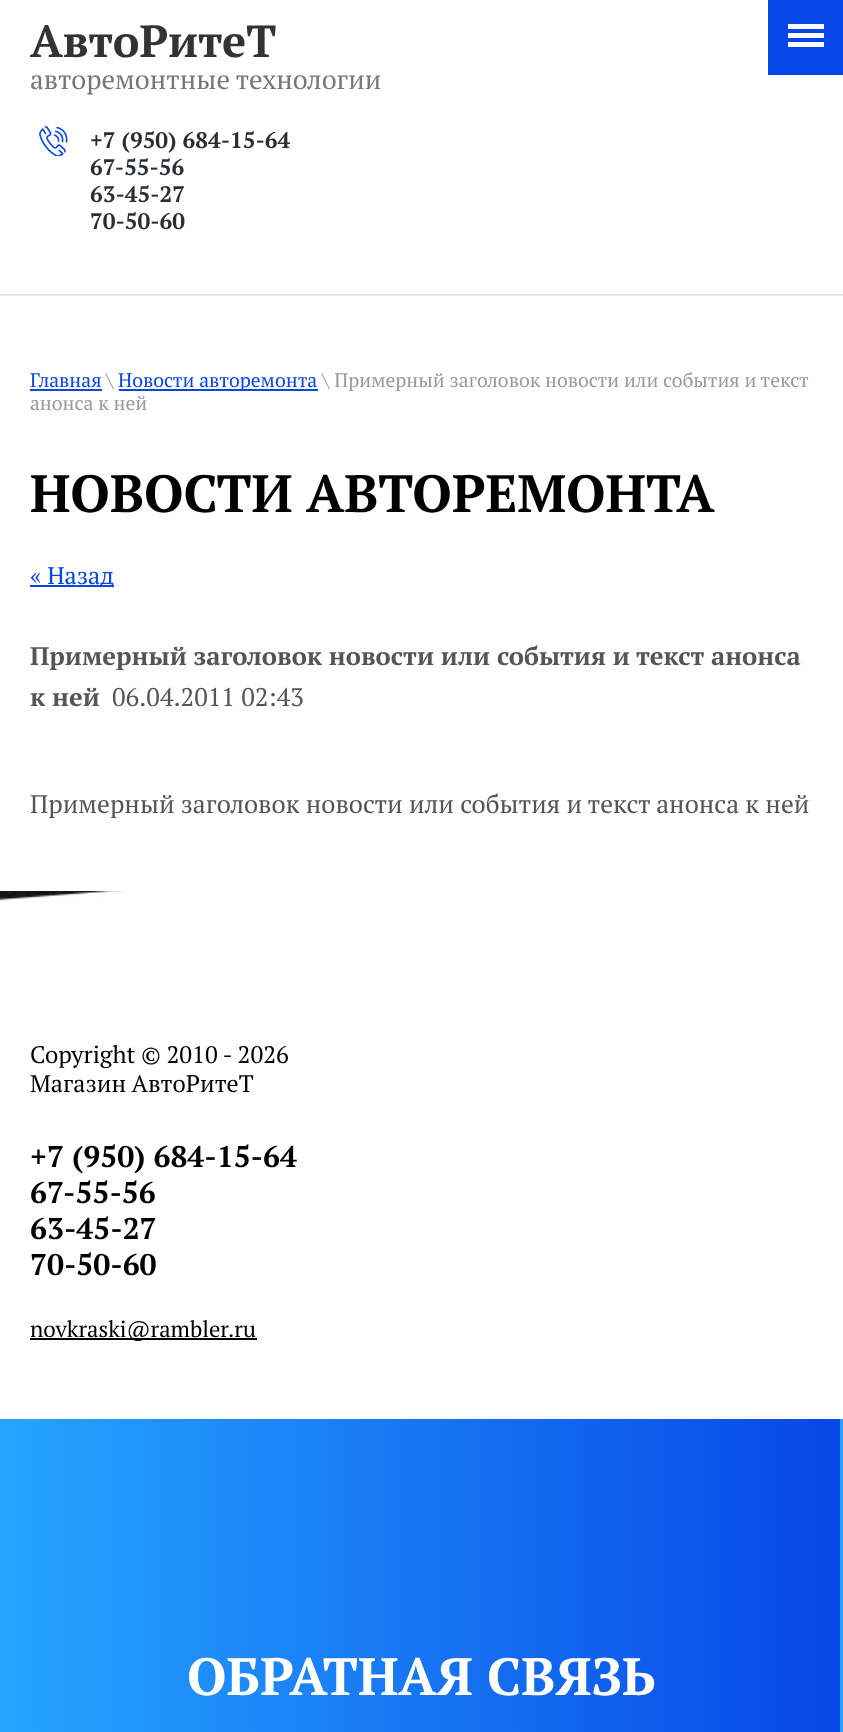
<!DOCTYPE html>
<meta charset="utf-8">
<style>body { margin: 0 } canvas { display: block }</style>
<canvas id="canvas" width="843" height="1732"></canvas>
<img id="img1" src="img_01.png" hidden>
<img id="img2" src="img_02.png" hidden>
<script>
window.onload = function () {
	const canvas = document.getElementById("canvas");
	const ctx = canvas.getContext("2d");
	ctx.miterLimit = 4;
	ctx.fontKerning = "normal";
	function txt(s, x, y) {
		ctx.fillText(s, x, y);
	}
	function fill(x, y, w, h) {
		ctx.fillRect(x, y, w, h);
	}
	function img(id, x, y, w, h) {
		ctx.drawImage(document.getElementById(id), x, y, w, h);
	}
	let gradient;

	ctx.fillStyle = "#FFFFFF";
	fill(0, 0, 843, 1732);
	img("img1", 0, 891, 843, 10);
	img("img2", 39, 126, 29, 30);
	ctx.fillStyle = "#0746E6";
	fill(768, 0, 75, 75);
	ctx.fillStyle = "#FFFFFF";
	fill(788, 24, 36, 5);
	fill(788, 33, 36, 5);
	fill(788, 42, 36, 5);
	ctx.fillStyle = "#E6E6E6";
	fill(0, 294, 843, 2);
	ctx.fillStyle = "#0746E6";
	fill(30, 389, 72, 2);
	fill(119, 389, 199, 2);
	fill(30, 585, 84, 2);
	ctx.fillStyle = "#000000";
	fill(30, 1338, 227, 2);
	gradient = ctx.createLinearGradient(0, 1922, 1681, 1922);
	gradient.addColorStop(0, "#26A5FF");
	gradient.addColorStop(0.5, "#0746E6");
	gradient.addColorStop(0.5, "#26A5FF");
	gradient.addColorStop(1, "#0746E6");
	ctx.fillStyle = gradient;
	fill(0, 1419, 843, 313);
	ctx.font = "bold 45px PT Serif";
	ctx.fillStyle = "#333333";
	txt("АвтоРитеТ", 30, 57);
	ctx.font = "27px PT Serif";
	ctx.fillStyle = "#777777";
	txt("авторемонтные технологии", 30, 89);
	ctx.font = "bold 22.5px PT Serif";
	ctx.fillStyle = "#2A2E33";
	txt("+7 (950) 684-15-64", 90, 148);
	txt("67-55-56", 90, 175);
	txt("63-45-27", 90, 202);
	txt("70-50-60", 90, 229);
	ctx.font = "19.5px PT Serif";
	ctx.fillStyle = "#0746E6";
	txt("Главная", 30, 387);
	ctx.fillStyle = "#999999";
	txt("\\", 106, 387);
	ctx.fillStyle = "#0746E6";
	txt("Новости авторемонта", 118, 387);
	ctx.fillStyle = "#999999";
	txt("\\ Примерный заголовок новости или события и текст", 322, 387);
	txt("анонса к ней", 30, 410);
	ctx.font = "bold 52.5px PT Serif";
	ctx.fillStyle = "#000000";
	txt("НОВОСТИ АВТОРЕМОНТА", 30, 512);
	ctx.font = "24px PT Serif";
	ctx.fillStyle = "#0746E6";
	txt("« Назад", 30, 584);
	ctx.font = "bold 25.5px PT Serif";
	ctx.fillStyle = "#555555";
	txt("Примерный заголовок новости или события и текст анонса", 30, 665);
	txt("к ней", 30, 706);
	ctx.font = "25.5px PT Serif";
	txt("06.04.2011 02:43", 112, 706);
	txt("Примерный заголовок новости или события и текст анонса к ней", 30, 813);
	ctx.font = "24px PT Serif";
	ctx.fillStyle = "#000000";
	txt("Copyright © 2010 - 2026", 30, 1063);
	txt("Магазин АвтоРитеТ", 30, 1092);
	ctx.font = "bold 30px PT Serif";
	txt("+7 (950) 684-15-64", 30, 1167);
	txt("67-55-56", 30, 1203);
	txt("63-45-27", 30, 1239);
	txt("70-50-60", 30, 1275);
	ctx.font = "22.5px PT Serif";
	txt("novkraski@rambler.ru", 30, 1337);
	ctx.font = "bold 52.5px PT Serif";
	ctx.fillStyle = "#FFFFFF";
	txt("ОБРАТНАЯ СВЯЗЬ", 187, 1695);
};
</script>
